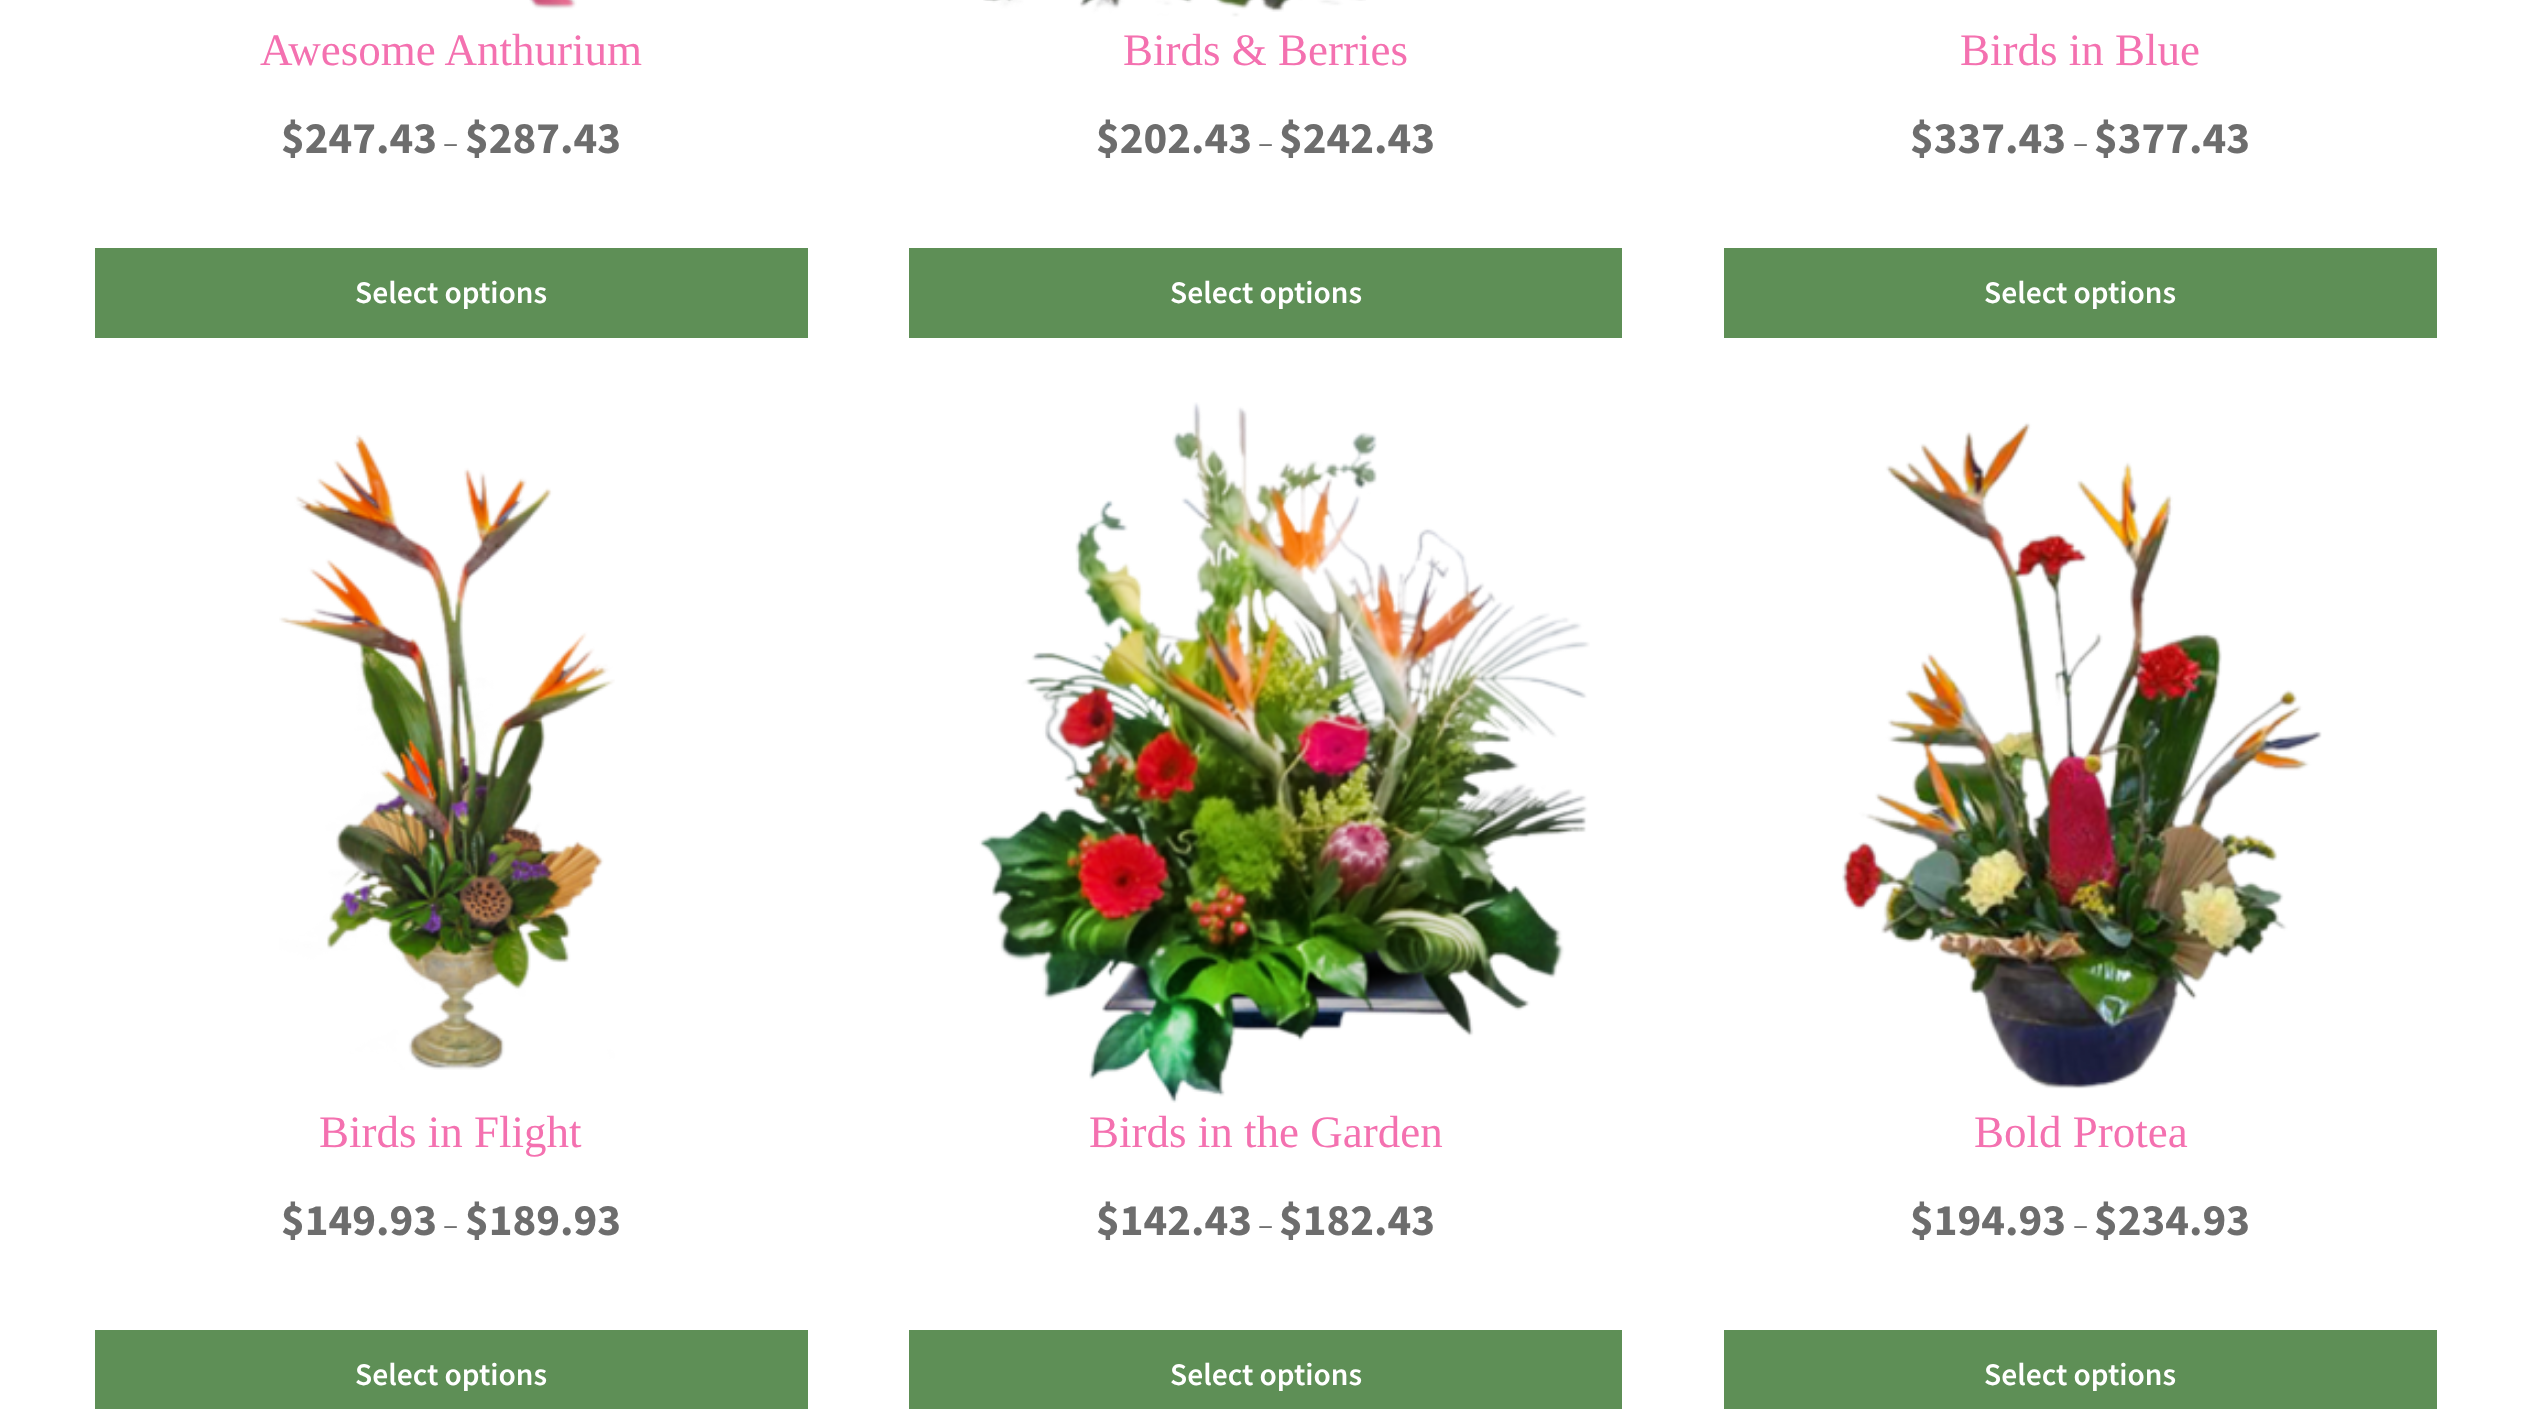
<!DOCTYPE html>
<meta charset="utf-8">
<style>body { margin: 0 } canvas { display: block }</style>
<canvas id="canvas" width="2530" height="1409"></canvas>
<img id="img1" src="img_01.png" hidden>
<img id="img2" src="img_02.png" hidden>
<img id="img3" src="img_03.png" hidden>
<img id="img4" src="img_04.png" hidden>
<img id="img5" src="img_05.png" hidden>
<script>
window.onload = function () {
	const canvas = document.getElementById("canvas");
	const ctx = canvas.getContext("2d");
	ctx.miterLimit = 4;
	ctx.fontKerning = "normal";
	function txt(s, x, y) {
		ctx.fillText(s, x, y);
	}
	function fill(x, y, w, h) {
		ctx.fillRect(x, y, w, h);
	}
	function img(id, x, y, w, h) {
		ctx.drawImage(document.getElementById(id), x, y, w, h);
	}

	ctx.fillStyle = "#FFFFFF";
	fill(0, 0, 2530, 1409);
	img("img1", 529, 0, 48, 10);
	ctx.fillStyle = "#5E8F56";
	fill(95, 248, 713, 90);
	img("img2", 983, 0, 383, 17);
	fill(909, 248, 713, 90);
	fill(1724, 248, 713, 90);
	img("img3", 279, 434, 336, 636);
	fill(95, 1330, 713, 79);
	img("img4", 979, 402, 611, 701);
	fill(909, 1330, 713, 79);
	img("img5", 1842, 422, 480, 667);
	fill(1724, 1330, 713, 79);
	ctx.font = "45px Liberation Serif";
	ctx.fillStyle = "#F471B0";
	txt("Awesome Anthurium", 260, 65);
	ctx.font = "bold 45px Source Sans Pro";
	ctx.fillStyle = "#6D6D6D";
	txt("$247.43", 281, 153);
	ctx.font = "31.5px Source Sans Pro";
	txt("–", 443, 153);
	ctx.font = "bold 45px Source Sans Pro";
	txt("$287.43", 465, 153);
	ctx.font = "600 31.5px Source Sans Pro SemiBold";
	ctx.fillStyle = "#FFFFFF";
	txt("Select options", 355, 303);
	ctx.font = "45px Liberation Serif";
	ctx.fillStyle = "#F471B0";
	txt("Birds & Berries", 1123, 65);
	ctx.font = "bold 45px Source Sans Pro";
	ctx.fillStyle = "#6D6D6D";
	txt("$202.43", 1096, 153);
	ctx.font = "31.5px Source Sans Pro";
	txt("–", 1258, 153);
	ctx.font = "bold 45px Source Sans Pro";
	txt("$242.43", 1279, 153);
	ctx.font = "600 31.5px Source Sans Pro SemiBold";
	ctx.fillStyle = "#FFFFFF";
	txt("Select options", 1170, 303);
	ctx.font = "45px Liberation Serif";
	ctx.fillStyle = "#F471B0";
	txt("Birds in Blue", 1960, 65);
	ctx.font = "bold 45px Source Sans Pro";
	ctx.fillStyle = "#6D6D6D";
	txt("$337.43", 1910, 153);
	ctx.font = "31.5px Source Sans Pro";
	txt("–", 2073, 153);
	ctx.font = "bold 45px Source Sans Pro";
	txt("$377.43", 2094, 153);
	ctx.font = "600 31.5px Source Sans Pro SemiBold";
	ctx.fillStyle = "#FFFFFF";
	txt("Select options", 1984, 303);
	ctx.font = "45px Liberation Serif";
	ctx.fillStyle = "#F471B0";
	txt("Birds in Flight", 319, 1147);
	ctx.font = "bold 45px Source Sans Pro";
	ctx.fillStyle = "#6D6D6D";
	txt("$149.93", 281, 1235);
	ctx.font = "31.5px Source Sans Pro";
	txt("–", 443, 1235);
	ctx.font = "bold 45px Source Sans Pro";
	txt("$189.93", 465, 1235);
	ctx.font = "600 31.5px Source Sans Pro SemiBold";
	ctx.fillStyle = "#FFFFFF";
	txt("Select options", 355, 1385);
	ctx.font = "45px Liberation Serif";
	ctx.fillStyle = "#F471B0";
	txt("Birds in the Garden", 1089, 1147);
	ctx.font = "bold 45px Source Sans Pro";
	ctx.fillStyle = "#6D6D6D";
	txt("$142.43", 1096, 1235);
	ctx.font = "31.5px Source Sans Pro";
	txt("–", 1258, 1235);
	ctx.font = "bold 45px Source Sans Pro";
	txt("$182.43", 1279, 1235);
	ctx.font = "600 31.5px Source Sans Pro SemiBold";
	ctx.fillStyle = "#FFFFFF";
	txt("Select options", 1170, 1385);
	ctx.font = "45px Liberation Serif";
	ctx.fillStyle = "#F471B0";
	txt("Bold Protea", 1974, 1147);
	ctx.font = "bold 45px Source Sans Pro";
	ctx.fillStyle = "#6D6D6D";
	txt("$194.93", 1910, 1235);
	ctx.font = "31.5px Source Sans Pro";
	txt("–", 2073, 1235);
	ctx.font = "bold 45px Source Sans Pro";
	txt("$234.93", 2094, 1235);
	ctx.font = "600 31.5px Source Sans Pro SemiBold";
	ctx.fillStyle = "#FFFFFF";
	txt("Select options", 1984, 1385);
};
</script>
